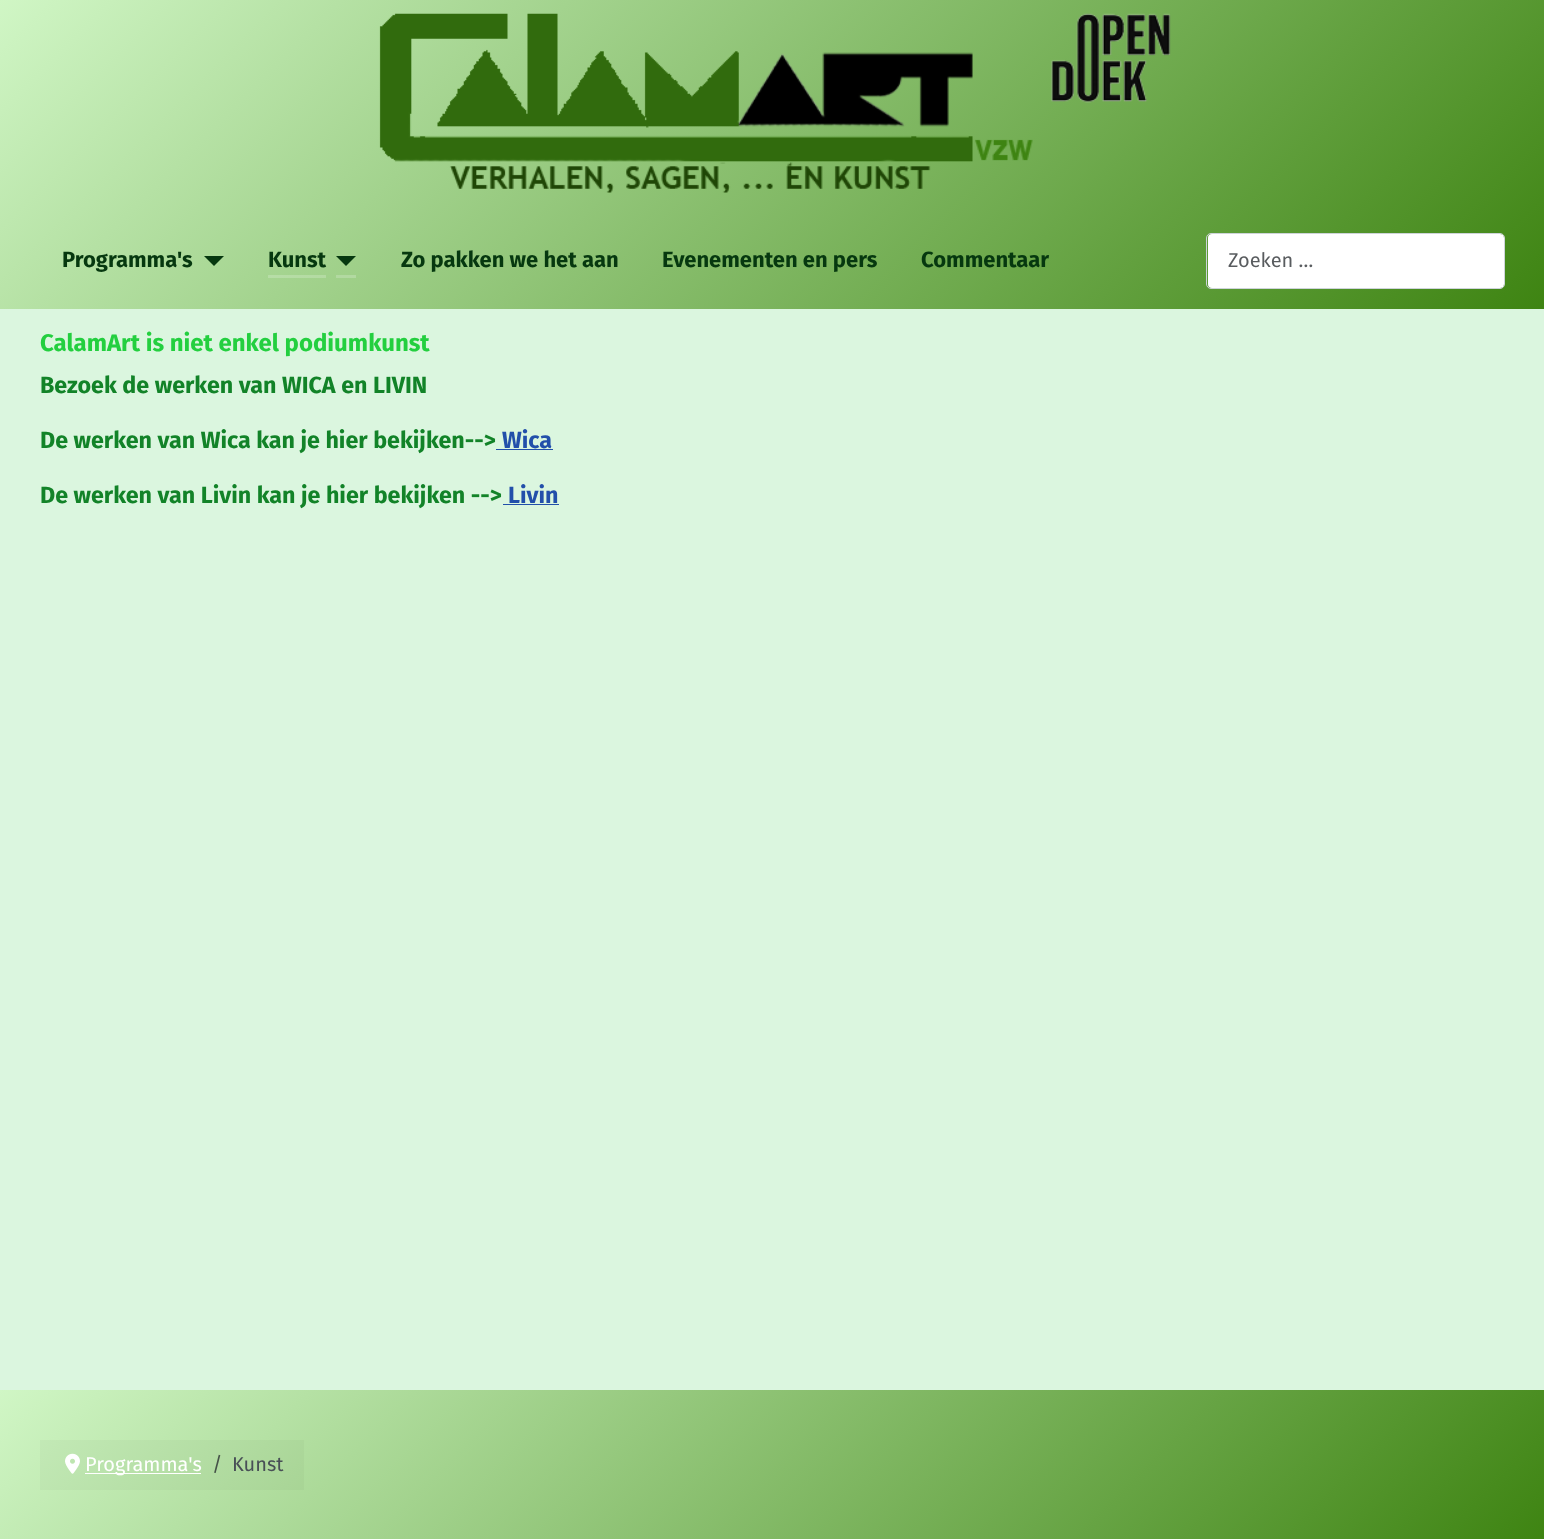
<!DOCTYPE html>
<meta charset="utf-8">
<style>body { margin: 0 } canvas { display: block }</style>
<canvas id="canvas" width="1544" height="1539"></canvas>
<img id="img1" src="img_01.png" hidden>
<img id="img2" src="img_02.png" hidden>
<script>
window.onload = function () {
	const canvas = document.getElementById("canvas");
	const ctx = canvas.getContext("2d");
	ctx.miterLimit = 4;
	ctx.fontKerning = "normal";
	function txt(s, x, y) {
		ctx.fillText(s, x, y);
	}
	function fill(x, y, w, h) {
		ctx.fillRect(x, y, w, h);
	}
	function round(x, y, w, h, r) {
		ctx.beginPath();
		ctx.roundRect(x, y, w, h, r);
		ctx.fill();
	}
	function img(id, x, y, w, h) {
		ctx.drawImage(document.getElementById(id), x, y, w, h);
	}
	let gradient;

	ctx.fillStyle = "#DBF6DF";
	fill(0, 0, 1544, 1539);
	gradient = ctx.createLinearGradient(309, -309, 1236, 618);
	gradient.addColorStop(0, "#D0F6C5");
	gradient.addColorStop(1, "#3E8412");
	ctx.fillStyle = gradient;
	fill(0, 0, 1544, 309);
	gradient = ctx.createLinearGradient(309, -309, 1236, 618);
	gradient.addColorStop(0, "#D9F8D1");
	gradient.addColorStop(1, "#659D41");
	ctx.fillStyle = gradient;
	fill(268, 275, 58, 3);
	img("img1", 379, 13, 792, 180);
	ctx.fillStyle = "#06380F";
	ctx.beginPath();
	ctx.moveTo(204, 256);
	ctx.lineTo(224, 256);
	ctx.lineTo(214, 266);
	ctx.closePath();
	ctx.fill();
	ctx.beginPath();
	ctx.moveTo(336, 256);
	ctx.lineTo(356, 256);
	ctx.lineTo(346, 266);
	ctx.closePath();
	ctx.fill();
	ctx.fillStyle = "#B2D9A1";
	fill(336, 275, 20, 3);
	ctx.fillStyle = "#FFFFFF";
	round(1208, 234, 296, 54, 4);
	ctx.beginPath();
	ctx.roundRect(1206.5, 233.5, 298, 55, 4.5);
	ctx.strokeStyle = "#CED4DA";
	ctx.stroke();
	ctx.fillStyle = "#224FAA";
	fill(496, 449, 57, 1);
	fill(503, 504, 56, 1);
	gradient = ctx.createLinearGradient(349, 1041, 1196, 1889);
	gradient.addColorStop(0, "#D0F6C5");
	gradient.addColorStop(1, "#3E8412");
	ctx.fillStyle = gradient;
	fill(0, 1390, 1544, 149);
	gradient = ctx.createLinearGradient(349, 1041, 1196, 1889);
	gradient.addColorStop(0, "#CAEFBF");
	gradient.addColorStop(1, "#3C8011");
	ctx.fillStyle = gradient;
	fill(40, 1440, 264, 50);
	img("img2", 65, 1453, 15, 21);
	ctx.fillStyle = "#FFFFFF";
	fill(85, 1473, 116, 1);
	ctx.font = "bold 22px Fira Sans";
	ctx.fillStyle = "#06380F";
	txt("Programma's", 62, 267);
	txt("Kunst", 268, 267);
	txt("Zo pakken we het aan", 401, 267);
	txt("Evenementen en pers", 662, 267);
	txt("Commentaar", 921, 267);
	ctx.font = "20px Fira Sans";
	ctx.fillStyle = "#595C5F";
	txt("Zoeken …", 1228, 267);
	ctx.font = "bold 24px Fira Sans";
	ctx.fillStyle = "#23CF3F";
	txt("CalamArt is niet enkel podiumkunst", 40, 351);
	ctx.font = "bold 23.3px Fira Sans";
	ctx.fillStyle = "#128328";
	txt("Bezoek de werken van WICA en LIVIN", 40, 393);
	txt("De werken van Wica kan je hier bekijken-->", 40, 448);
	ctx.fillStyle = "#224FAA";
	txt("Wica", 502, 448);
	ctx.fillStyle = "#128328";
	txt("De werken van Livin kan je hier bekijken -->", 40, 503);
	ctx.fillStyle = "#224FAA";
	txt("Livin", 508, 503);
	ctx.font = "20px Fira Sans";
	ctx.fillStyle = "#FFFFFF";
	txt("Programma's", 85, 1471);
	ctx.fillStyle = "#465348";
	txt("/", 212, 1471);
	ctx.fillStyle = "#484F56";
	txt("Kunst", 232, 1471);
};
</script>
